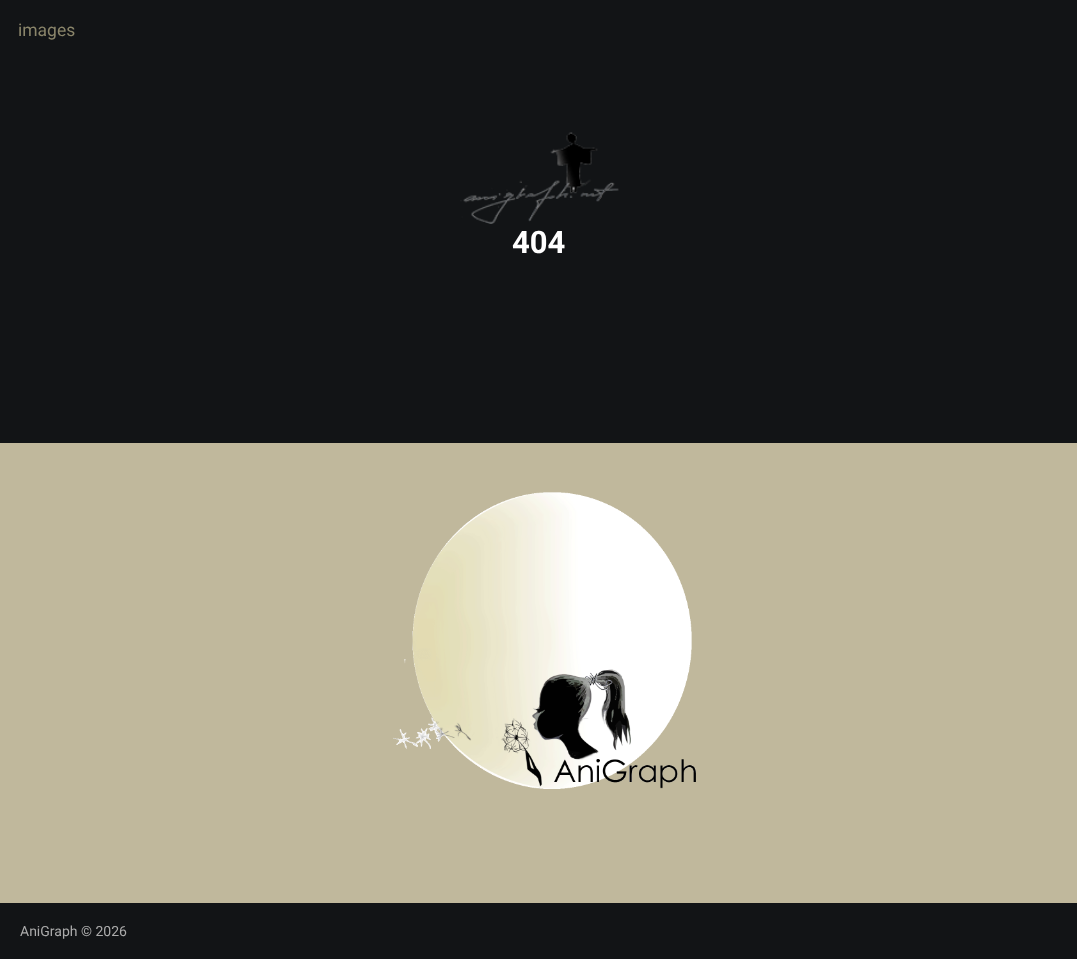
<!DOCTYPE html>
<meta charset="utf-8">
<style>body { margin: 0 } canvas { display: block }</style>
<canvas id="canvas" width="1077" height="959"></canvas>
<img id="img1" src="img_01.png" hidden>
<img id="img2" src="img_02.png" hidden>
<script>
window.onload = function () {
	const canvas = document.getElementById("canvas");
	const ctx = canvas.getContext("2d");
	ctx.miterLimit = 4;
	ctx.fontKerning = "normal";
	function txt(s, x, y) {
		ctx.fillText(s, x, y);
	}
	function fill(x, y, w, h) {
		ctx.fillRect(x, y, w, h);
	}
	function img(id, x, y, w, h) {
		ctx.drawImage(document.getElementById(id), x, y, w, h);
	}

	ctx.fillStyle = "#121416";
	fill(0, 0, 1077, 959);
	img("img1", 460, 132, 159, 92);
	ctx.fillStyle = "#C0B89C";
	fill(0, 443, 1077, 460);
	img("img2", 393, 492, 303, 297);
	ctx.font = "17.5px Roboto";
	ctx.fillStyle = "#8A856A";
	txt("images", 18, 36);
	ctx.font = "bold 31px Roboto";
	ctx.fillStyle = "#FFFFFF";
	txt("404", 512, 253);
	ctx.font = "14px Roboto";
	ctx.fillStyle = "#ABABAB";
	txt("AniGraph © 2026", 20, 936);
};
</script>
